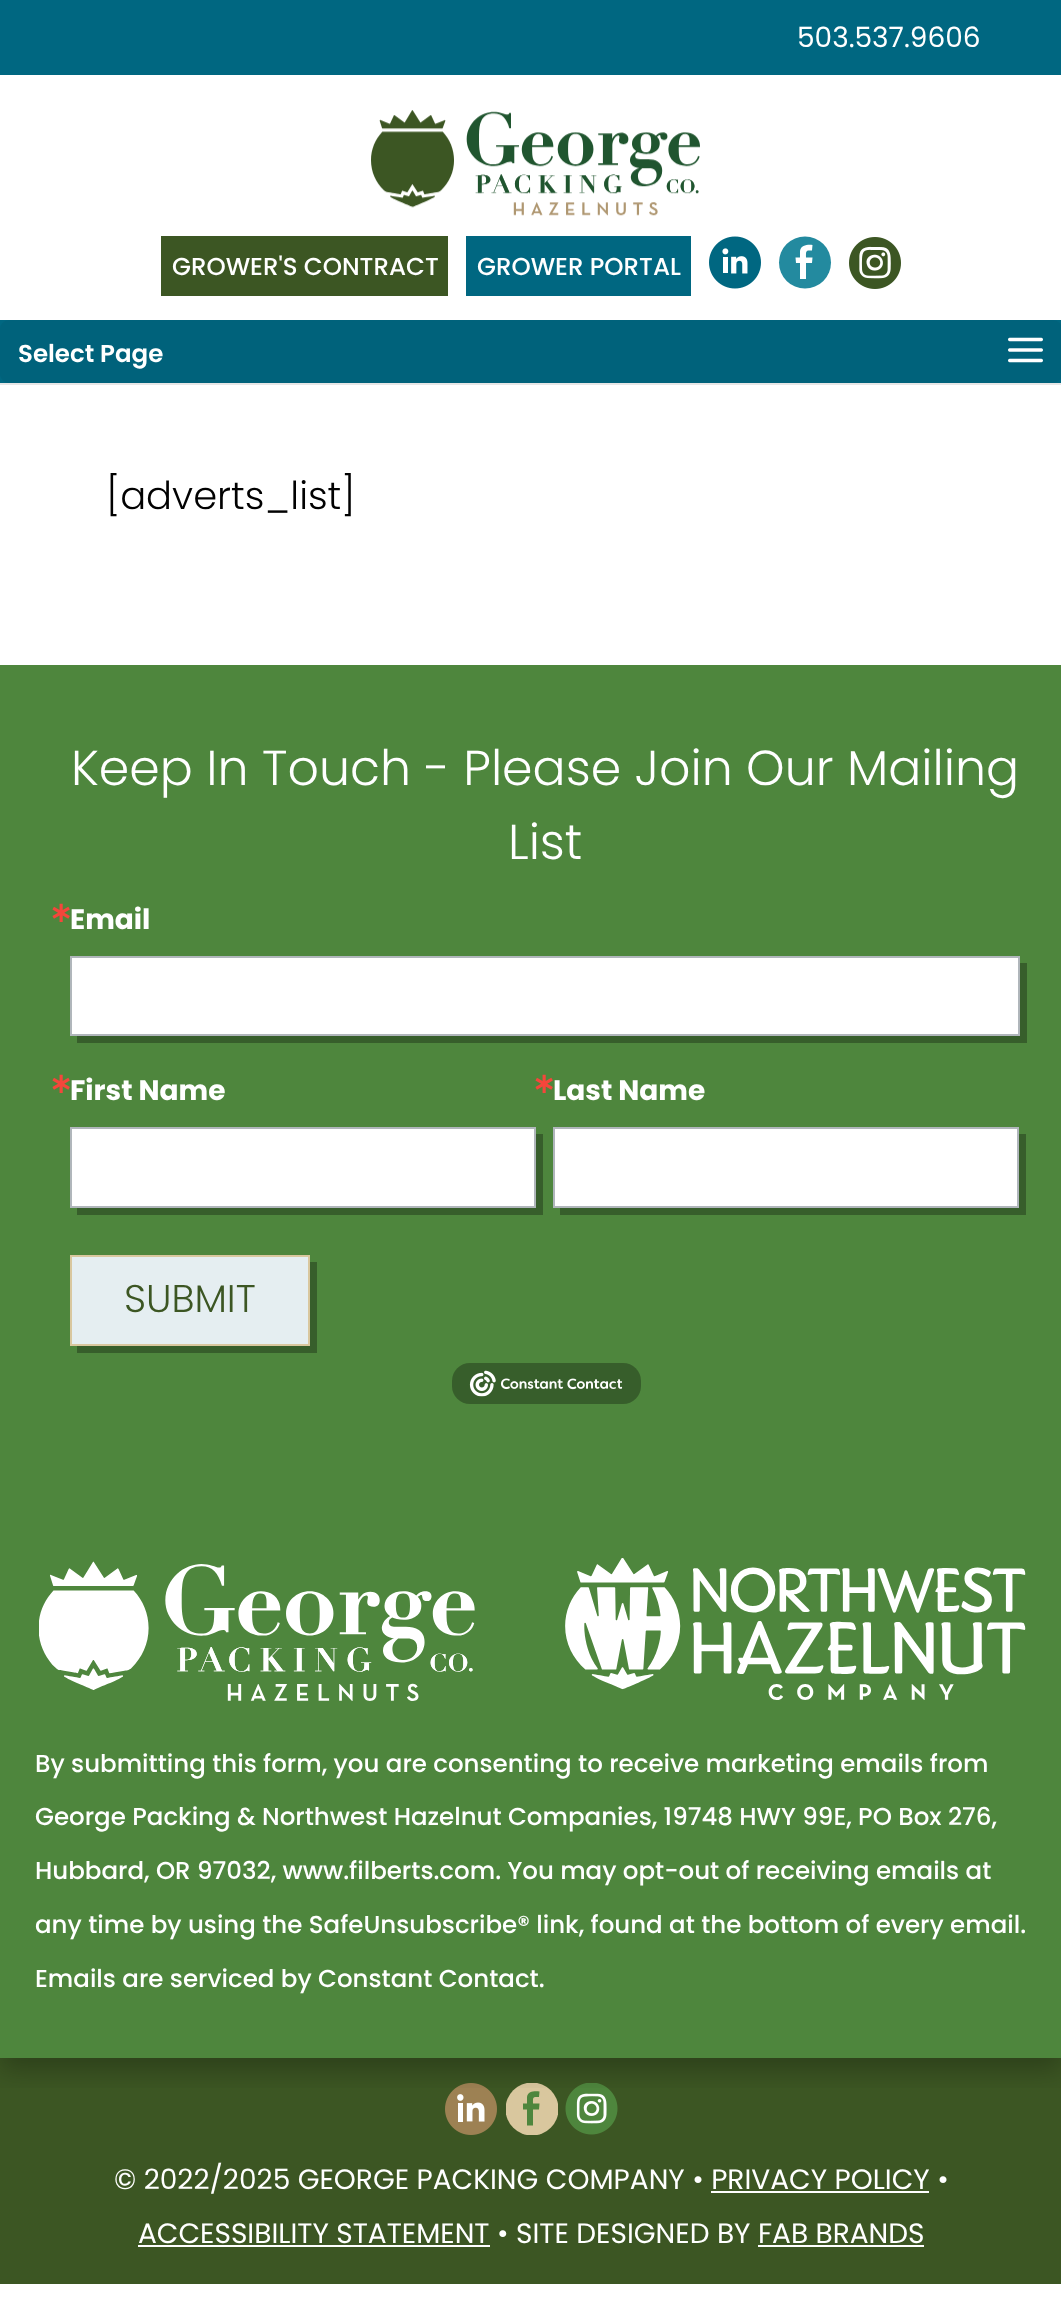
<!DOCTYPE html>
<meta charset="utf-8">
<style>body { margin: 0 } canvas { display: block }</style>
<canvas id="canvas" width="1061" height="2322"></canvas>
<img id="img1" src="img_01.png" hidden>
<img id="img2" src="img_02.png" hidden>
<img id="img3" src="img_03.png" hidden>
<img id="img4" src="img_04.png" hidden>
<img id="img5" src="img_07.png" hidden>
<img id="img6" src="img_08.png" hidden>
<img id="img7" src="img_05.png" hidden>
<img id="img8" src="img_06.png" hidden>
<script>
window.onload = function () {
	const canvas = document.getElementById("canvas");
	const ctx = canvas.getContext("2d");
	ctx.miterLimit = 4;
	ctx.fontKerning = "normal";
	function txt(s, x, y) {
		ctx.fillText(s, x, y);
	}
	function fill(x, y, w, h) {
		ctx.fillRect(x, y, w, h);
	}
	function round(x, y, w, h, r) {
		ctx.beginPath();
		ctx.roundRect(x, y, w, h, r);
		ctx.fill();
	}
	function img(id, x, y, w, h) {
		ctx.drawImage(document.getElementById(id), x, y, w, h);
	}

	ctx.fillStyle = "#FFFFFF";
	fill(0, 0, 1061, 2322);
	ctx.fillStyle = "#E6E6E6";
	fill(0, 383, 1061, 2);
	ctx.fillStyle = "#006781";
	fill(0, 0, 1061, 75);
	img("img1", 371, 110, 329, 106);
	ctx.fillStyle = "#3C5623";
	fill(161, 236, 287, 60);
	ctx.fillStyle = "#006781";
	fill(466, 236, 225, 60);
	img("img2", 709, 236, 52, 53);
	ctx.fillStyle = "#238A9F";
	ctx.beginPath();
	ctx.arc(805, 262.5, 26, 0, Math.PI * 2);
	ctx.fill();
	ctx.fillStyle = "#FFFFFF";
	ctx.beginPath();
	ctx.moveTo(800, 279);
	ctx.lineTo(800, 263);
	ctx.lineTo(796, 263);
	ctx.lineTo(795.5, 257.5);
	ctx.lineTo(800, 257.5);
	ctx.lineTo(800, 251);
	ctx.bezierCurveTo(801, 245, 807.5, 244.5, 812.5, 245);
	ctx.lineTo(812, 250.5);
	ctx.bezierCurveTo(805.5, 250.5, 806, 250.5, 806, 257.5);
	ctx.lineTo(812.5, 257.5);
	ctx.lineTo(812, 263);
	ctx.lineTo(806, 263);
	ctx.lineTo(806, 279);
	ctx.lineTo(800, 279);
	ctx.fill();
	img("img3", 849, 237, 52, 52);
	ctx.fillStyle = "#006781";
	fill(0, 320, 1061, 63);
	ctx.fillStyle = "#00627B";
	round(0, 320, 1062, 63, 9);
	img("img4", 1008, 337, 35, 26);
	ctx.fillStyle = "#4E863D";
	fill(0, 665, 1061, 1393);
	ctx.fillStyle = "#3C5623";
	fill(0, 2058, 1061, 226);
	img("img5", 445, 2083, 52, 52);
	ctx.save();
	ctx.beginPath();
	ctx.rect(506, 2083, 52, 52);
	ctx.clip();
	ctx.fillStyle = "#D9C79E";
	ctx.beginPath();
	ctx.arc(532, 2109, 26.5, 0, Math.PI * 2);
	ctx.fill();
	ctx.restore();
	img("img6", 565, 2083, 53, 52);
	ctx.fillStyle = "#4E863D";
	ctx.beginPath();
	ctx.moveTo(527, 2125.5);
	ctx.lineTo(527, 2109.5);
	ctx.lineTo(523, 2109.5);
	ctx.lineTo(523, 2103.5);
	ctx.lineTo(527, 2103.5);
	ctx.lineTo(527, 2097);
	ctx.bezierCurveTo(528, 2091, 534.5, 2091, 539.5, 2091.5);
	ctx.lineTo(539, 2097);
	ctx.bezierCurveTo(532.5, 2097, 533, 2097, 533, 2103.5);
	ctx.lineTo(539.5, 2103.5);
	ctx.lineTo(539, 2109.5);
	ctx.lineTo(533, 2109.5);
	ctx.lineTo(533, 2125.5);
	ctx.lineTo(527, 2125.5);
	ctx.fill();
	ctx.save();
	ctx.beginPath();
	ctx.rect(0, 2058, 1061, 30);
	ctx.clip();
	ctx.fillStyle = "rgba(0, 0, 0, 0.25)";
	ctx.filter = "blur(13px)";
	ctx.beginPath();
	ctx.rect(0, 677, 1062, 1393);
	ctx.fill();
	ctx.filter = "none";
	ctx.restore();
	ctx.fillStyle = "#FFFFFF";
	fill(0, 654, 1061, 11);
	ctx.fillStyle = "#375E2B";
	ctx.beginPath();
	ctx.moveTo(77, 1036);
	ctx.lineTo(77, 1043);
	ctx.lineTo(1027, 1043);
	ctx.lineTo(1027, 963);
	ctx.lineTo(1020, 963);
	ctx.lineTo(1020, 1036);
	ctx.closePath();
	ctx.fill();
	ctx.fillStyle = "#FFFFFF";
	ctx.beginPath();
	ctx.rect(71, 957, 948, 78);
	ctx.fill();
	ctx.strokeStyle = "#B0B6BB";
	ctx.lineWidth = 2;
	ctx.stroke();
	ctx.fillStyle = "#375E2B";
	ctx.beginPath();
	ctx.moveTo(77, 1208);
	ctx.lineTo(77, 1215);
	ctx.lineTo(543, 1215);
	ctx.lineTo(543, 1134);
	ctx.lineTo(536, 1134);
	ctx.lineTo(536, 1208);
	ctx.closePath();
	ctx.fill();
	ctx.fillStyle = "#FFFFFF";
	ctx.beginPath();
	ctx.rect(71, 1128, 464, 79);
	ctx.fill();
	ctx.stroke();
	ctx.fillStyle = "#375E2B";
	ctx.beginPath();
	ctx.moveTo(560, 1208);
	ctx.lineTo(560, 1215);
	ctx.lineTo(1026, 1215);
	ctx.lineTo(1026, 1134);
	ctx.lineTo(1018, 1134);
	ctx.lineTo(1018, 1208);
	ctx.closePath();
	ctx.fill();
	ctx.fillStyle = "#FFFFFF";
	ctx.beginPath();
	ctx.rect(554, 1128, 464, 79);
	ctx.fill();
	ctx.stroke();
	ctx.fillStyle = "#375E2B";
	ctx.beginPath();
	ctx.moveTo(77, 1346);
	ctx.lineTo(77, 1353);
	ctx.lineTo(317, 1353);
	ctx.lineTo(317, 1262);
	ctx.lineTo(310, 1262);
	ctx.lineTo(310, 1346);
	ctx.closePath();
	ctx.fill();
	ctx.fillStyle = "#E5EEF1";
	ctx.beginPath();
	ctx.rect(71, 1256, 238, 89);
	ctx.fill();
	ctx.strokeStyle = "#D9C79E";
	ctx.stroke();
	ctx.fillStyle = "#375E2B";
	round(452, 1363, 189, 41, 18);
	img("img7", 469, 1370, 154, 27);
	img("img8", 39, 1558, 987, 143);
	ctx.fillStyle = "#FFFFFF";
	fill(711, 2191, 218, 2);
	fill(138, 2245, 352, 2);
	fill(758, 2245, 166, 2);
	ctx.font = "28px Poppins";
	txt("503.537.9606", 797, 47);
	ctx.font = "500 24.5px Poppins";
	txt("GROWER'S CONTRACT", 172, 275);
	txt("GROWER PORTAL", 477, 275);
	ctx.font = "600 24.5px Poppins";
	txt("Select Page", 18, 362);
	ctx.font = "300 38.5px Poppins";
	ctx.fillStyle = "#010101";
	txt("[adverts_list]", 106, 509);
	ctx.font = "300 49px Poppins";
	ctx.fillStyle = "#FFFFFF";
	txt("Keep In Touch - Please Join Our Mailing", 71, 785);
	txt("List", 508, 859);
	ctx.font = "bold 28px DejaVu Sans";
	ctx.fillStyle = "#F5463B";
	txt("∗", 49, 922);
	ctx.font = "bold 28px Poppins";
	ctx.fillStyle = "#FFFFFF";
	txt("Email", 70, 929);
	ctx.font = "bold 28px DejaVu Sans";
	ctx.fillStyle = "#F5463B";
	txt("∗", 49, 1093);
	ctx.font = "bold 28px Poppins";
	ctx.fillStyle = "#FFFFFF";
	txt("First Name", 70, 1100);
	ctx.font = "bold 28px DejaVu Sans";
	ctx.fillStyle = "#F5463B";
	txt("∗", 532, 1093);
	ctx.font = "bold 28px Poppins";
	ctx.fillStyle = "#FFFFFF";
	txt("Last Name", 553, 1100);
	ctx.font = "300 38.5px Poppins";
	ctx.fillStyle = "#3C5623";
	txt("SUBMIT", 124, 1312);
	ctx.font = "500 24.5px Poppins";
	ctx.fillStyle = "#FFFFFF";
	txt("By submitting this form, you are consenting to receive marketing emails from", 35, 1772);
	txt("George Packing & Northwest Hazelnut Companies, 19748 HWY 99E, PO Box 276,", 35, 1825);
	txt("Hubbard, OR 97032, www.filberts.com. You may opt-out of receiving emails at", 35, 1879);
	txt("any time by using the SafeUnsubscribe® link, found at the bottom of every email.", 35, 1933);
	txt("Emails are serviced by Constant Contact.", 35, 1987);
	ctx.font = "28px Poppins";
	txt("© 2022/2025 GEORGE PACKING COMPANY • PRIVACY POLICY •", 114, 2189);
	txt("ACCESSIBILITY STATEMENT • SITE DESIGNED BY FAB BRANDS", 138, 2243);
};
</script>
